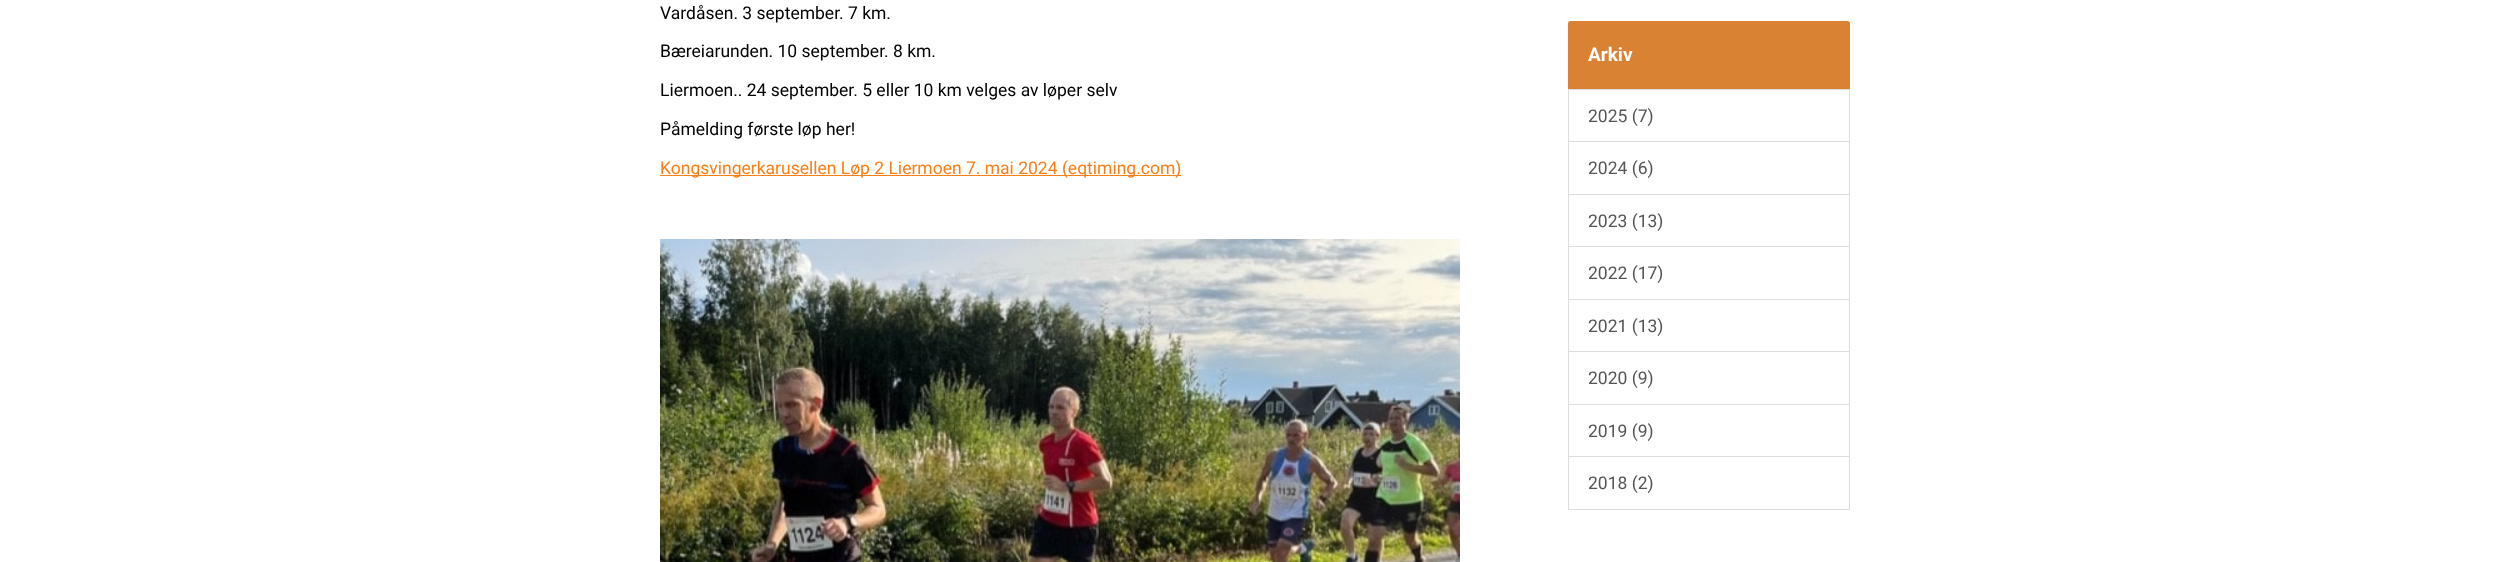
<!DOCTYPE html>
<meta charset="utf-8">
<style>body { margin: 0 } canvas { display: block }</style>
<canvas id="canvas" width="2510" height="562"></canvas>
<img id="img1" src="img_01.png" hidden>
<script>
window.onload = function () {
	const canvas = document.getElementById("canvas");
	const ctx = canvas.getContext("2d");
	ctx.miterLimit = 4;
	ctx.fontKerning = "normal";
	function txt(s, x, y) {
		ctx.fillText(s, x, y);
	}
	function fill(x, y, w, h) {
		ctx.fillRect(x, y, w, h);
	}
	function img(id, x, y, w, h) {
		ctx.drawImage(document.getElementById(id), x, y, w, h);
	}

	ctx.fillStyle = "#FFFFFF";
	fill(0, 0, 2510, 562);
	ctx.fillStyle = "#F87F15";
	fill(660, 175, 521, 1);
	img("img1", 660, 239, 800, 323);
	ctx.fillStyle = "#D98233";
	ctx.beginPath();
	ctx.roundRect(1568, 21, 282, 68, [2.5, 2.5, 0, 0]);
	ctx.fill();
	ctx.strokeStyle = "#DDDDDD";
	ctx.strokeRect(1568.5, 89.5, 281, 53);
	ctx.fillStyle = "#FFFFFF";
	fill(1569, 142, 280, 1);
	ctx.strokeRect(1568.5, 141.5, 281, 53);
	ctx.strokeRect(1568.5, 194.5, 281, 53);
	fill(1569, 247, 280, 1);
	ctx.strokeRect(1568.5, 246.5, 281, 53);
	ctx.strokeRect(1568.5, 299.5, 281, 53);
	fill(1569, 352, 280, 1);
	ctx.strokeRect(1568.5, 351.5, 281, 53);
	ctx.strokeRect(1568.5, 404.5, 281, 53);
	fill(1569, 457, 280, 1);
	ctx.strokeRect(1568.5, 456.5, 281, 53);
	ctx.font = "17.5px Roboto";
	ctx.fillStyle = "#000000";
	txt("Vardåsen. 3 september. 7 km.", 660, 19);
	txt("Bæreiarunden. 10 september. 8 km.", 660, 57);
	txt("Liermoen.. 24 september. 5 eller 10 km velges av løper selv", 660, 96);
	txt("Påmelding første løp her!", 660, 135);
	ctx.fillStyle = "#F87F15";
	txt("Kongsvingerkarusellen Løp 2 Liermoen 7. mai 2024 (eqtiming.com)", 660, 174);
	ctx.font = "bold 19px Roboto";
	ctx.fillStyle = "#FFFFFF";
	txt("Arkiv", 1588, 61);
	ctx.font = "17.5px Roboto";
	ctx.fillStyle = "#555555";
	txt("2025 (7)", 1588, 122);
	txt("2024 (6)", 1588, 174);
	txt("2023 (13)", 1588, 227);
	txt("2022 (17)", 1588, 279);
	txt("2021 (13)", 1588, 332);
	txt("2020 (9)", 1588, 384);
	txt("2019 (9)", 1588, 437);
	txt("2018 (2)", 1588, 489);
};
</script>
